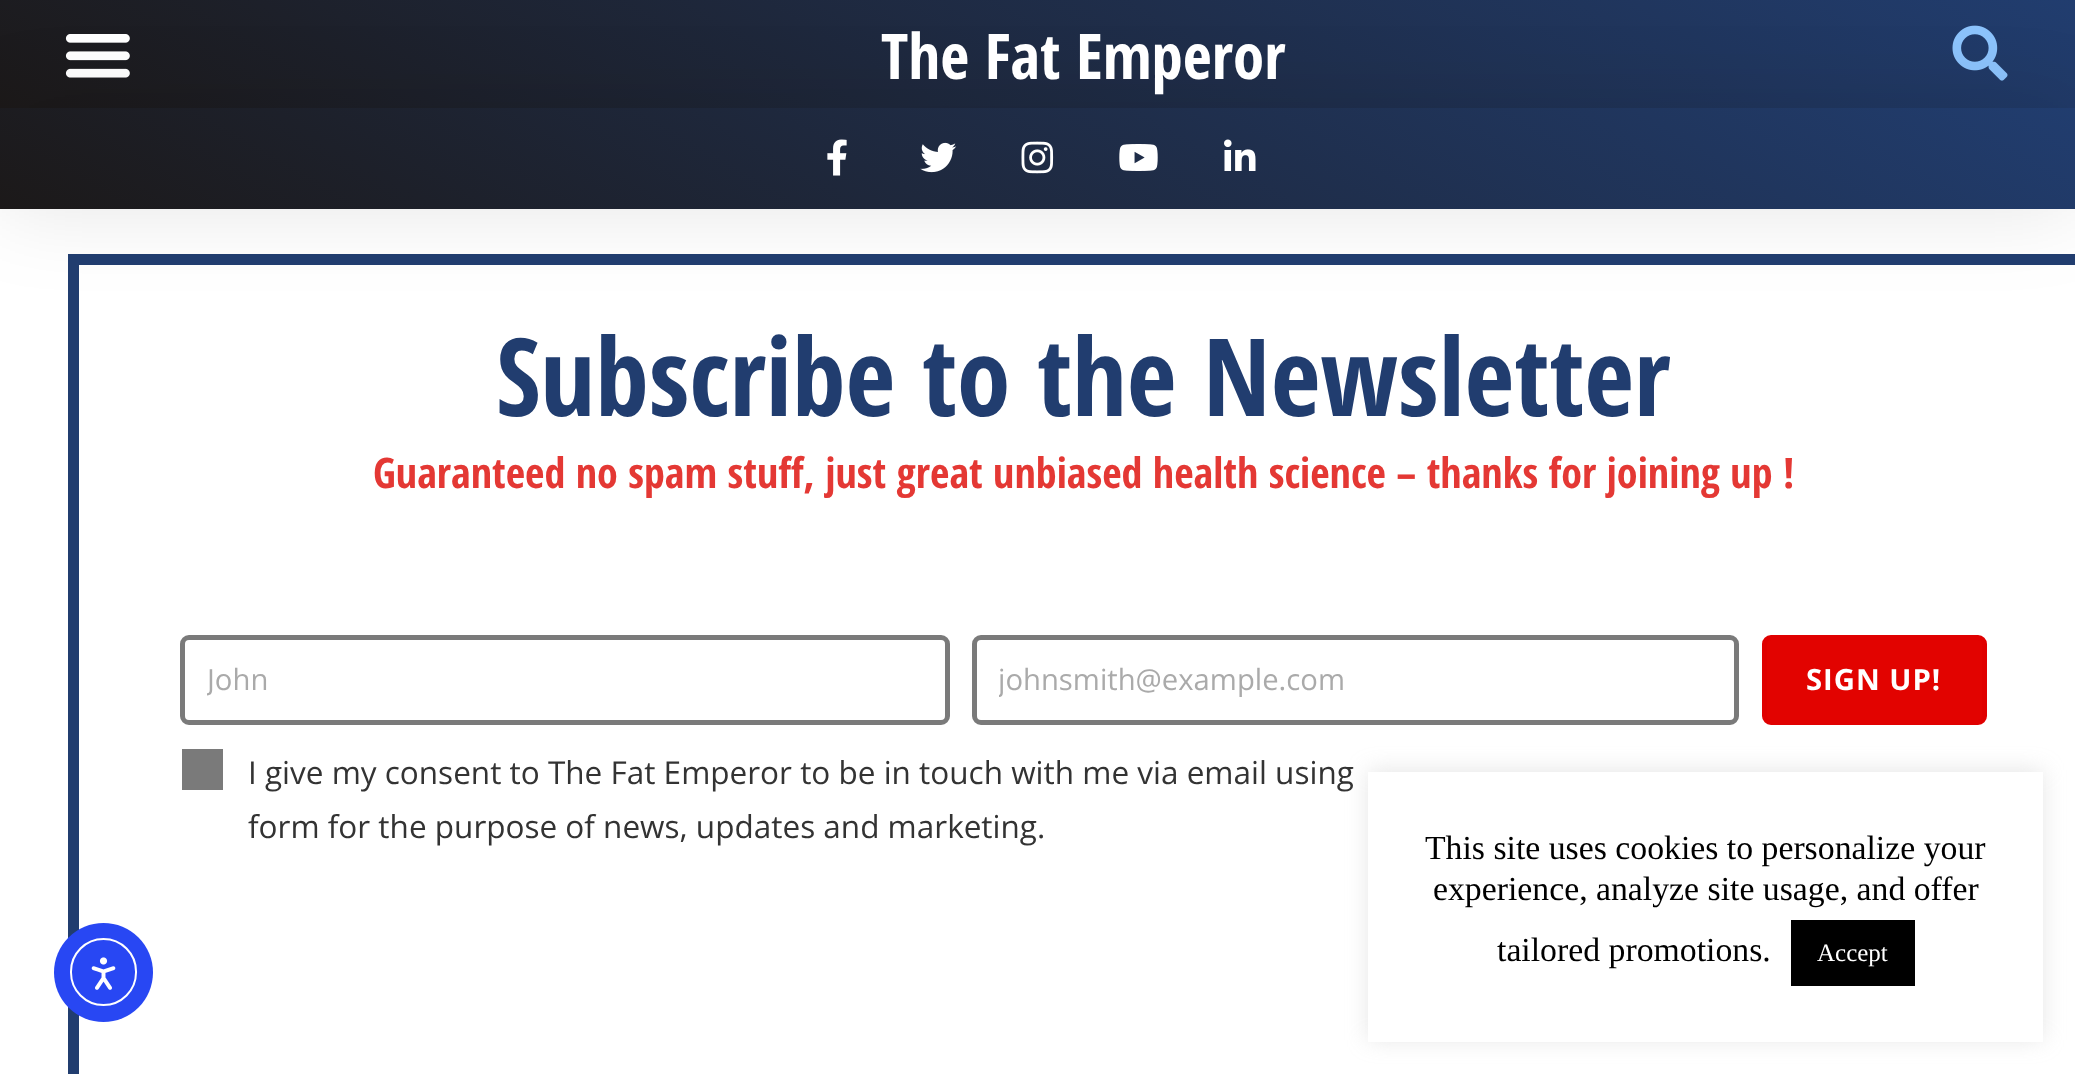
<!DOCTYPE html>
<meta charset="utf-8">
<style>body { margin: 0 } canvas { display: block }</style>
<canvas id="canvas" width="2075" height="1074"></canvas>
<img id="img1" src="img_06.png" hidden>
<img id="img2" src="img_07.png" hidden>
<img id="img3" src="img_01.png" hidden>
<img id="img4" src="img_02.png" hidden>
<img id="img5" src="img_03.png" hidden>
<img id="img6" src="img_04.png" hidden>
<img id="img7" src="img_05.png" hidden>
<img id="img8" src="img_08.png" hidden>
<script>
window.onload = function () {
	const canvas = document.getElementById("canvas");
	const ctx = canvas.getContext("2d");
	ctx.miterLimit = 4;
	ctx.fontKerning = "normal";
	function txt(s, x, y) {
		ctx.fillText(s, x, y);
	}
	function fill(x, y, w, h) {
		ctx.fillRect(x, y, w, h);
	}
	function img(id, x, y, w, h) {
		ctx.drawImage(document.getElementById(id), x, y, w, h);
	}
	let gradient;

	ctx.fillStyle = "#FFFFFF";
	fill(0, 0, 2075, 1074);
	gradient = ctx.createLinearGradient(1321, -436, 755, 544);
	gradient.addColorStop(0, "#213D6F");
	gradient.addColorStop(1, "#1C1919");
	ctx.fillStyle = gradient;
	fill(0, 0, 2075, 108);
	img("img1", 65, 34, 65, 44);
	img("img2", 1952, 25, 56, 56);
	ctx.fillStyle = "rgba(0, 0, 0, 0.1)";
	ctx.filter = "blur(43px)";
	ctx.beginPath();
	ctx.rect(0, 108, 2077, 101);
	ctx.fill();
	ctx.filter = "none";
	gradient = ctx.createLinearGradient(1320, -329, 757, 646);
	gradient.addColorStop(0, "#213D6F");
	gradient.addColorStop(1, "#1C1919");
	ctx.fillStyle = gradient;
	fill(0, 108, 2075, 101);
	img("img3", 827, 139, 20, 37);
	img("img4", 920, 142, 37, 31);
	img("img5", 1021, 141, 33, 33);
	img("img6", 1119, 144, 39, 27);
	img("img7", 1224, 139, 32, 32);
	ctx.strokeStyle = "#213D6F";
	ctx.lineWidth = 11;
	ctx.strokeRect(73.5, 259.5, 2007, 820);
	ctx.beginPath();
	ctx.roundRect(182.5, 637.5, 765, 85, 6.5);
	ctx.strokeStyle = "#7A7A7A";
	ctx.lineWidth = 5;
	ctx.stroke();
	ctx.beginPath();
	ctx.roundRect(974.5, 637.5, 762, 85, 6.5);
	ctx.stroke();
	ctx.fillStyle = "#E20300";
	ctx.beginPath();
	ctx.roundRect(1764.5, 637.5, 220, 85, 6.5);
	ctx.fill();
	ctx.strokeStyle = "#E00000";
	ctx.stroke();
	ctx.fillStyle = "#7A7A7A";
	fill(182, 749, 41, 41);
	ctx.fillStyle = "#2847F3";
	ctx.beginPath();
	ctx.arc(103.5, 972.5, 49.5, 0, Math.PI * 2);
	ctx.fill();
	ctx.beginPath();
	ctx.roundRect(71, 939, 65, 66, 32.5);
	ctx.strokeStyle = "#FFFFFF";
	ctx.lineWidth = 2;
	ctx.stroke();
	img("img8", 91, 957, 25, 33);
	ctx.fillStyle = "rgba(172, 171, 171, 0.3)";
	ctx.filter = "blur(11px)";
	ctx.beginPath();
	ctx.rect(1368, 770, 675, 270);
	ctx.fill();
	ctx.filter = "none";
	ctx.fillStyle = "#FFFFFF";
	fill(1368, 772, 675, 270);
	ctx.fillStyle = "#000000";
	fill(1791, 920, 124, 66);
	ctx.font = "bold 63px Open Sans Condensed";
	ctx.fillStyle = "#FFFFFF";
	txt("The Fat Emperor", 881, 79);
	ctx.font = "bold 108px Open Sans Condensed";
	ctx.fillStyle = "#213D6F";
	txt("Subscribe to the Newsletter", 496, 416);
	ctx.font = "bold 42.1px Open Sans Condensed";
	ctx.fillStyle = "#E43834";
	txt("Guaranteed no spam stuff, just great unbiased health science – thanks for joining up !", 373, 488);
	ctx.save();
	ctx.beginPath();
	ctx.rect(207, 659, 716, 41);
	ctx.clip();
	ctx.font = "29.25px Open Sans";
	ctx.fillStyle = "#AAAAAA";
	txt("John", 207, 690);
	ctx.restore();
	ctx.save();
	ctx.beginPath();
	ctx.rect(999, 659, 713, 41);
	ctx.clip();
	ctx.font = "29.25px Open Sans";
	ctx.fillStyle = "#AAAAAA";
	txt("johnsmith@example.com", 998, 690);
	ctx.restore();
	ctx.letterSpacing = "1px";
	ctx.font = "bold 29.25px Open Sans";
	ctx.fillStyle = "#FFFFFF";
	txt("SIGN UP!", 1806, 690);
	ctx.letterSpacing = "0px";
	ctx.font = "31.5px Open Sans";
	ctx.fillStyle = "#333333";
	txt("I give my consent to The Fat Emperor to be in touch with me via email using", 248, 784);
	txt("form for the purpose of news, updates and marketing.", 248, 838);
	ctx.font = "33.75px Liberation Serif";
	ctx.fillStyle = "#000000";
	txt("This site uses cookies to personalize your", 1425, 859);
	txt("experience, analyze site usage, and offer", 1433, 900);
	txt("tailored promotions.", 1497, 961);
	ctx.font = "25px Liberation Serif";
	ctx.fillStyle = "#FFFFFF";
	txt("Accept", 1817, 961);
};
</script>
